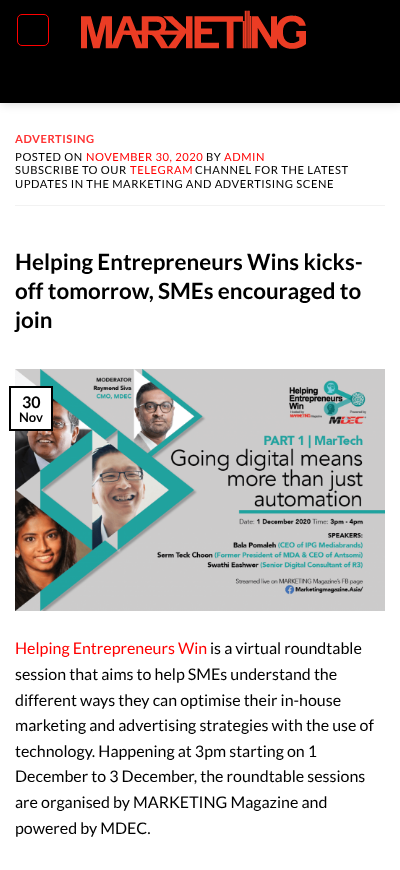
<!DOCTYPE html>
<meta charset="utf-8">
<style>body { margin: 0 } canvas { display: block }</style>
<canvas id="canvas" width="400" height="870"></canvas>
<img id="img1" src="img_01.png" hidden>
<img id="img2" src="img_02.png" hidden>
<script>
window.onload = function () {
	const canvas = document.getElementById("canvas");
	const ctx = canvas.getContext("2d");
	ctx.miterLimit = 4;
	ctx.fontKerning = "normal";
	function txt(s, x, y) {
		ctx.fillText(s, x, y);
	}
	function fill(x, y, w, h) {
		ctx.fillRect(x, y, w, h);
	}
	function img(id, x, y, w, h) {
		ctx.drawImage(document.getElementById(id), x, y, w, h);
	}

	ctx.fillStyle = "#FFFFFF";
	fill(0, 0, 400, 870);
	ctx.fillStyle = "rgba(0, 0, 0, 0.15)";
	ctx.filter = "blur(5px)";
	ctx.beginPath();
	ctx.rect(1, 1, 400, 103);
	ctx.fill();
	ctx.filter = "none";
	ctx.fillStyle = "#000000";
	fill(0, 0, 400, 103);
	ctx.beginPath();
	ctx.roundRect(17.5, 14.5, 31, 31, 4.5);
	ctx.strokeStyle = "#FF0000";
	ctx.stroke();
	img("img1", 81, 10, 225, 39);
	ctx.fillStyle = "#F2F2F2";
	fill(15, 205, 370, 1);
	img("img2", 15, 369, 370, 242);
	ctx.fillStyle = "#FFFFFF";
	fill(15, 388, 36, 41);
	ctx.strokeStyle = "#000000";
	ctx.lineWidth = 2;
	ctx.strokeRect(10, 387, 42, 43);
	ctx.letterSpacing = "0.55px";
	ctx.font = "bold 11.2px Lato";
	ctx.fillStyle = "#FF3333";
	txt("ADVERTISING", 15, 143);
	ctx.font = "11.2px Lato";
	ctx.fillStyle = "#000000";
	txt("POSTED ON", 15, 161);
	ctx.fillStyle = "#FF0000";
	txt("NOVEMBER 30, 2020", 86, 161);
	ctx.fillStyle = "#000000";
	txt("BY", 206, 161);
	ctx.fillStyle = "#FF0000";
	txt("ADMIN", 224, 161);
	ctx.fillStyle = "#000000";
	txt("SUBSCRIBE TO OUR", 15, 174);
	ctx.fillStyle = "#FF0000";
	txt("TELEGRAM", 130, 174);
	ctx.fillStyle = "#000000";
	txt("CHANNEL FOR THE LATEST", 195, 174);
	txt("UPDATES IN THE MARKETING AND ADVERTISING SCENE", 15, 188);
	ctx.letterSpacing = "0px";
	ctx.font = "bold 22.4px Lato";
	txt("Helping Entrepreneurs Wins kicks-", 15, 270);
	txt("off tomorrow, SMEs encouraged to", 15, 299);
	txt("join", 15, 328);
	ctx.font = "bold 16px Lato";
	txt("30", 22, 408);
	ctx.font = "bold 13px Lato";
	txt("Nov", 19, 422);
	ctx.font = "16px Lato";
	ctx.fillStyle = "#FF0000";
	txt("Helping Entrepreneurs Win", 15, 654);
	ctx.fillStyle = "#000000";
	txt("is a virtual roundtable", 210, 654);
	txt("session that aims to help SMEs understand the", 15, 680);
	txt("different ways they can optimise their in-house", 15, 706);
	txt("marketing and advertising strategies with the use of", 15, 731);
	txt("technology. Happening at 3pm starting on 1", 15, 757);
	txt("December to 3 December, the roundtable sessions", 15, 782);
	txt("are organised by MARKETING Magazine and", 15, 808);
	txt("powered by MDEC.", 15, 834);
};
</script>
